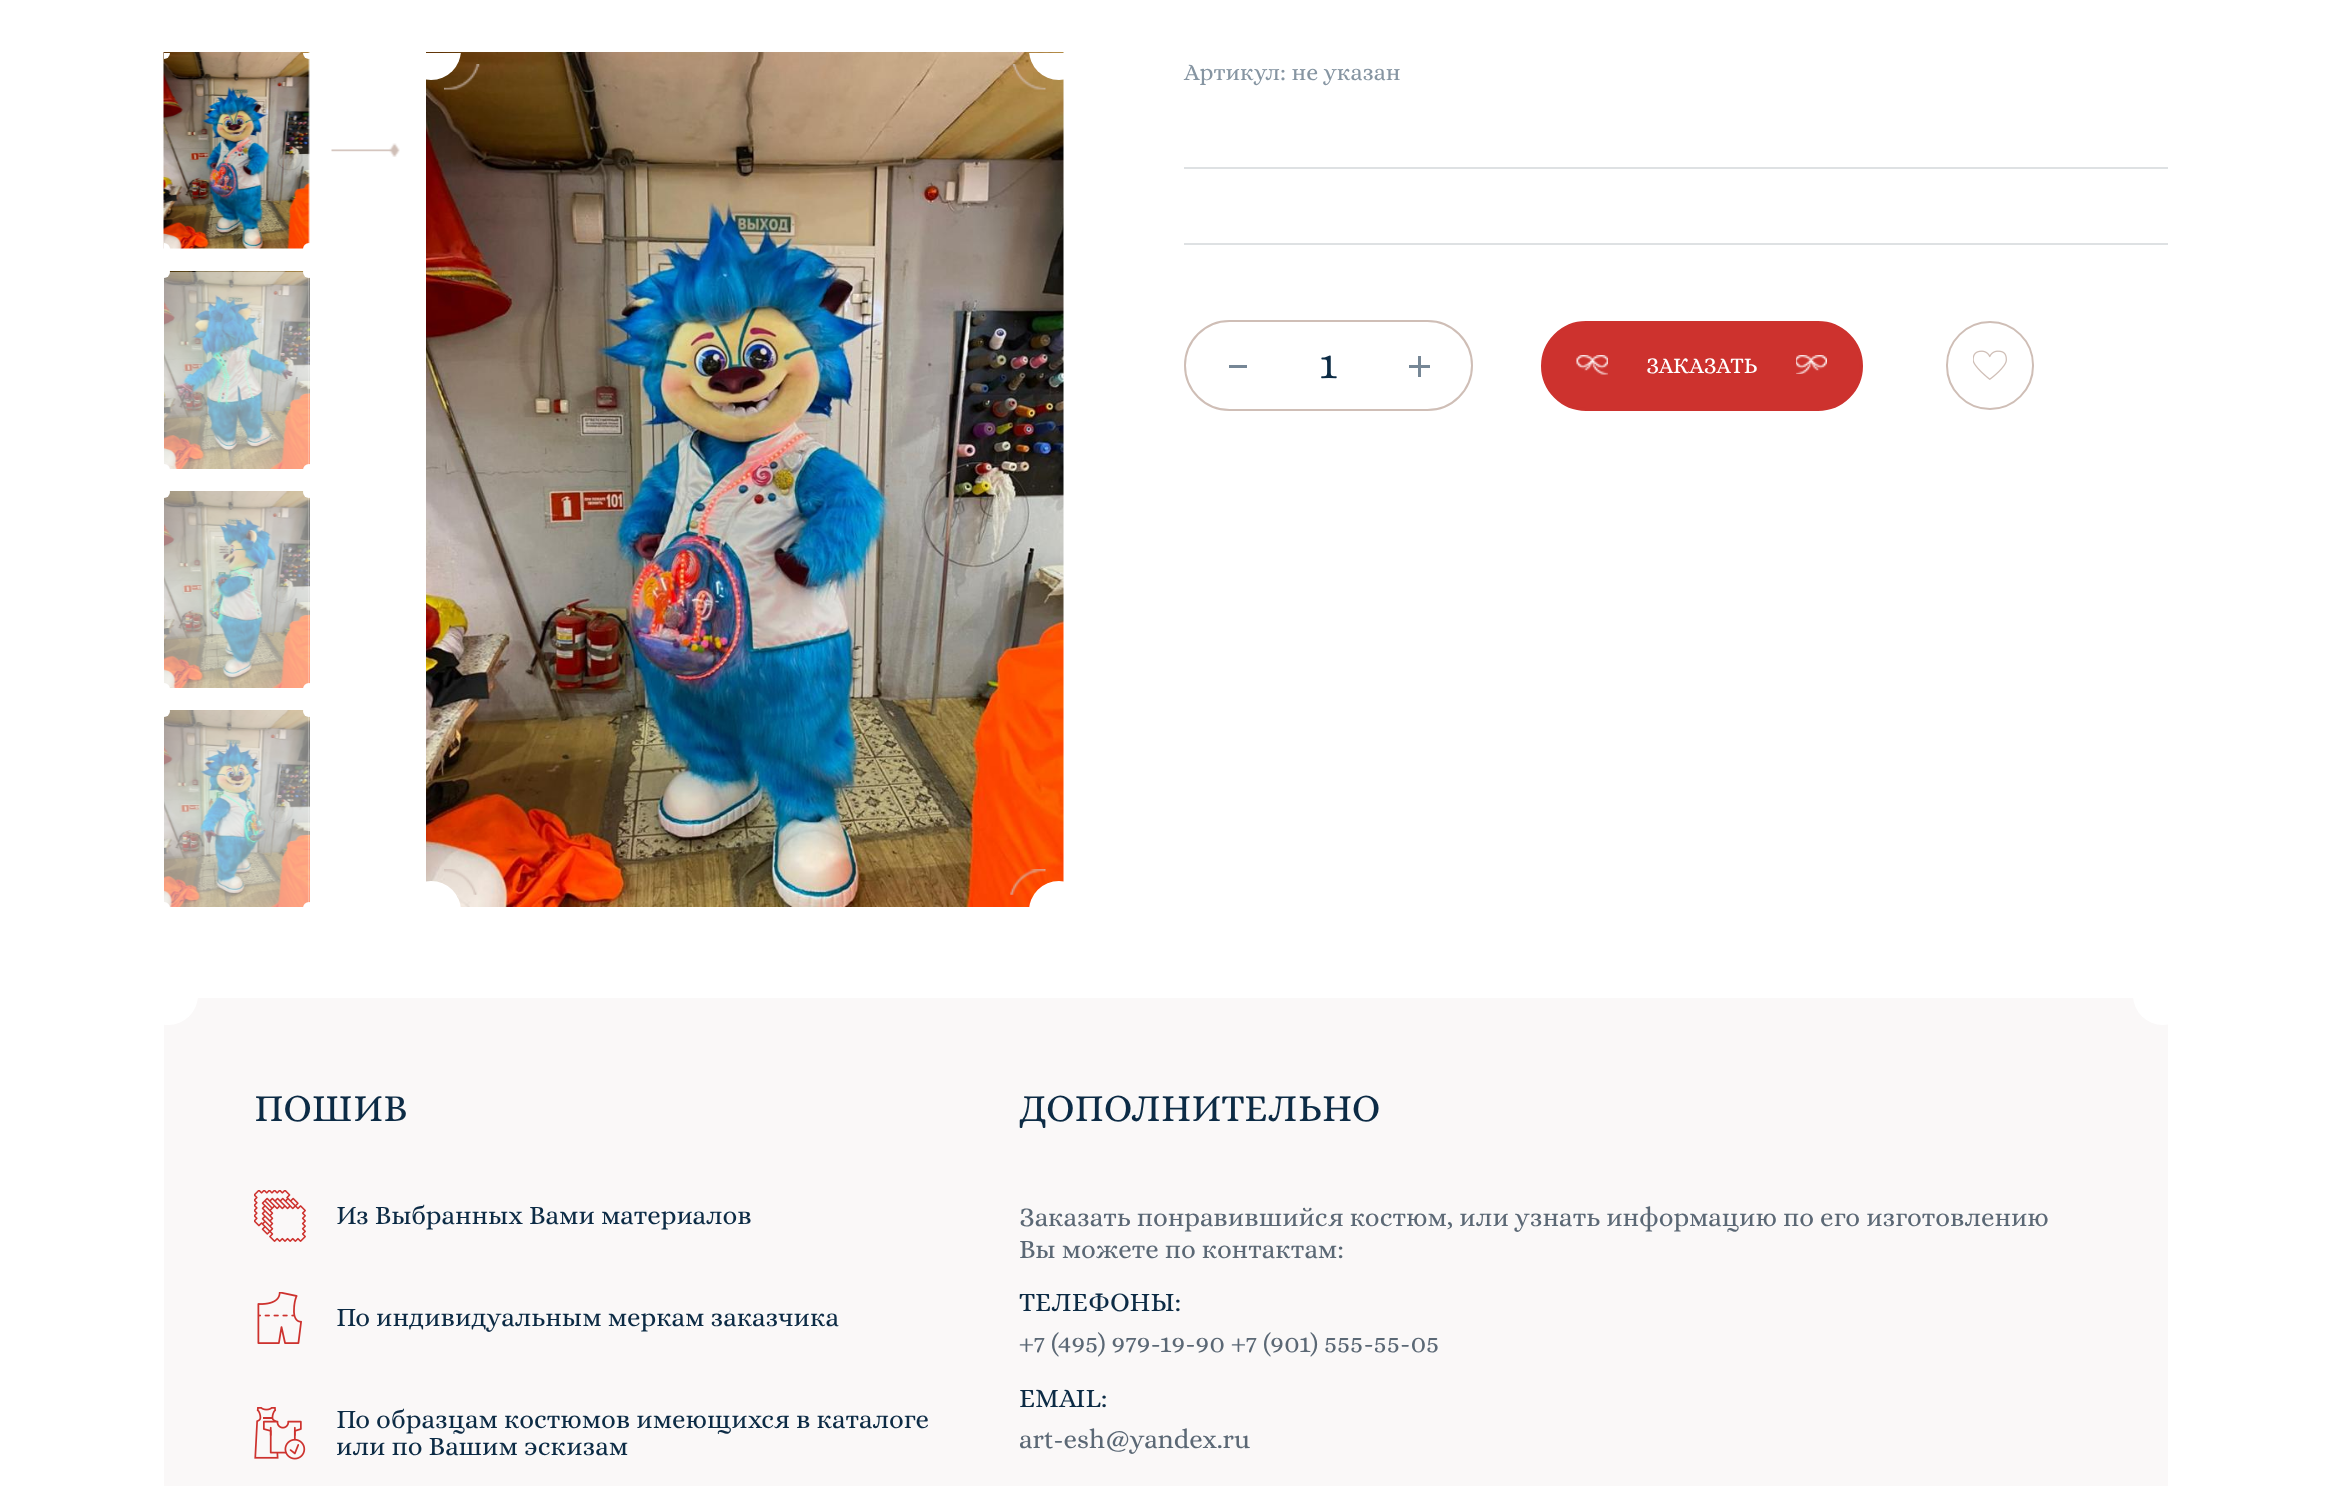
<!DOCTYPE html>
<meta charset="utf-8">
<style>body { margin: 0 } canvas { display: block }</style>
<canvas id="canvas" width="2330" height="1486"></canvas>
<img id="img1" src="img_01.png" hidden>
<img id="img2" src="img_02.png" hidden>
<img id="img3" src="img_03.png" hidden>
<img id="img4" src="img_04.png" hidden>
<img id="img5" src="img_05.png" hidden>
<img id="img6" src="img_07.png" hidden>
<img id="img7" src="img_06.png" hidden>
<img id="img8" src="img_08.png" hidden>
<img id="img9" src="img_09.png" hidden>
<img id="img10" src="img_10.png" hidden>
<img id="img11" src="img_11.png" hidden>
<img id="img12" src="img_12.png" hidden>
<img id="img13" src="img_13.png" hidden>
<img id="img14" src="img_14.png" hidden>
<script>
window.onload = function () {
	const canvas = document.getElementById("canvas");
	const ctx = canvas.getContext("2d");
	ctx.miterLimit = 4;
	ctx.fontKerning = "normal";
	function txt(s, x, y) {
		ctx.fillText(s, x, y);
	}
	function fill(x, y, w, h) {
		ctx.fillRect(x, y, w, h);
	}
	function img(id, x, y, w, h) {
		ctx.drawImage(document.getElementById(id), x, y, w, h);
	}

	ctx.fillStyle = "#FFFFFF";
	fill(0, 0, 2330, 1486);
	img("img1", 163, 52, 147, 197);
	ctx.beginPath();
	ctx.roundRect(164, 53, 6, 6, [0, 0, 6, 0]);
	ctx.fill();
	ctx.beginPath();
	ctx.roundRect(303, 53, 12, 6, [0, 0, 6, 6]);
	ctx.fill();
	ctx.beginPath();
	ctx.roundRect(164, 243, 6, 12, [0, 6, 6, 0]);
	ctx.fill();
	ctx.beginPath();
	ctx.arc(309, 249, 6, 0, Math.PI * 2);
	ctx.fill();
	img("img2", 331, 143, 69, 14);
	img("img3", 164, 271, 146, 198);
	ctx.beginPath();
	ctx.roundRect(164, 266, 6, 12, [0, 6, 6, 0]);
	ctx.fill();
	ctx.beginPath();
	ctx.arc(309, 272, 6, 0, Math.PI * 2);
	ctx.fill();
	ctx.beginPath();
	ctx.roundRect(164, 464, 6, 12, [0, 6, 6, 0]);
	ctx.fill();
	ctx.beginPath();
	ctx.arc(309, 470, 6, 0, Math.PI * 2);
	ctx.fill();
	ctx.fillStyle = "rgba(255, 255, 255, 0.5)";
	fill(164, 272, 145, 197);
	img("img4", 164, 491, 146, 197);
	ctx.fillStyle = "#FFFFFF";
	ctx.beginPath();
	ctx.roundRect(164, 486, 6, 12, [0, 6, 6, 0]);
	ctx.fill();
	ctx.beginPath();
	ctx.arc(309, 492, 6, 0, Math.PI * 2);
	ctx.fill();
	ctx.beginPath();
	ctx.roundRect(164, 683, 6, 12, [0, 6, 6, 0]);
	ctx.fill();
	ctx.beginPath();
	ctx.arc(309, 689, 6, 0, Math.PI * 2);
	ctx.fill();
	ctx.fillStyle = "rgba(255, 255, 255, 0.5)";
	fill(164, 492, 145, 196);
	img("img5", 164, 710, 146, 197);
	ctx.fillStyle = "#FFFFFF";
	ctx.beginPath();
	ctx.roundRect(164, 705, 6, 12, [0, 6, 6, 0]);
	ctx.fill();
	ctx.beginPath();
	ctx.arc(309, 711, 6, 0, Math.PI * 2);
	ctx.fill();
	ctx.beginPath();
	ctx.roundRect(164, 902, 6, 6, [0, 6, 0, 0]);
	ctx.fill();
	ctx.beginPath();
	ctx.roundRect(303, 902, 12, 6, [6, 6, 0, 0]);
	ctx.fill();
	ctx.fillStyle = "rgba(255, 255, 255, 0.5)";
	fill(164, 711, 145, 196);
	img("img6", 426, 52, 638, 855);
	ctx.save();
	ctx.beginPath();
	ctx.rect(426, 53, 638, 855);
	ctx.clip();
	ctx.fillStyle = "#FFFFFF";
	ctx.beginPath();
	ctx.arc(431, 50, 30, 0, Math.PI * 2);
	ctx.fill();
	ctx.restore();
	img("img7", 444, 64, 602, 26);
	ctx.save();
	ctx.beginPath();
	ctx.rect(426, 53, 638, 855);
	ctx.clip();
	ctx.fillStyle = "#FFFFFF";
	ctx.beginPath();
	ctx.arc(1059, 50, 30, 0, Math.PI * 2);
	ctx.fill();
	ctx.beginPath();
	ctx.arc(431, 911, 30, 0, Math.PI * 2);
	ctx.fill();
	ctx.restore();
	img("img8", 444, 869, 602, 26);
	ctx.save();
	ctx.beginPath();
	ctx.rect(426, 53, 638, 855);
	ctx.clip();
	ctx.fillStyle = "#FFFFFF";
	ctx.beginPath();
	ctx.arc(1059, 911, 30, 0, Math.PI * 2);
	ctx.fill();
	ctx.restore();
	ctx.fillStyle = "#DEE1E3";
	fill(1184, 167, 984, 2);
	fill(1184, 243, 984, 2);
	ctx.beginPath();
	ctx.roundRect(1185, 321, 287, 89, 44.5);
	ctx.strokeStyle = "#CFBEB6";
	ctx.lineWidth = 2;
	ctx.stroke();
	ctx.fillStyle = "#768796";
	fill(1229, 365, 18, 3);
	fill(1418, 356, 3, 21);
	fill(1409, 365, 21, 3);
	ctx.fillStyle = "#CD322E";
	ctx.beginPath();
	ctx.roundRect(1542.5, 322.5, 319, 87, 43.5);
	ctx.fill();
	ctx.strokeStyle = "#CD322E";
	ctx.lineWidth = 3;
	ctx.stroke();
	img("img9", 1576, 355, 32, 20);
	img("img10", 1796, 355, 31, 19);
	ctx.beginPath();
	ctx.roundRect(1947, 322, 86, 87, 43);
	ctx.strokeStyle = "#CFBEB6";
	ctx.lineWidth = 2;
	ctx.stroke();
	img("img11", 1973, 350, 34, 30);
	ctx.fillStyle = "#FAF8F8";
	fill(164, 998, 2004, 488);
	ctx.save();
	ctx.beginPath();
	ctx.rect(164, 998, 2004, 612);
	ctx.clip();
	ctx.fillStyle = "#FFFFFF";
	ctx.beginPath();
	ctx.arc(168, 995, 30, 0, Math.PI * 2);
	ctx.fill();
	ctx.beginPath();
	ctx.arc(2163, 995, 30, 0, Math.PI * 2);
	ctx.fill();
	ctx.restore();
	img("img12", 254, 1190, 52, 52);
	img("img13", 257, 1292, 45, 52);
	img("img14", 254, 1407, 52, 53);
	ctx.font = "24px 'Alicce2'";
	ctx.fillStyle = "#8695A2";
	txt("Артикул: не указан", 1184, 80);
	ctx.font = "42px 'Alicce2'";
	ctx.fillStyle = "#0C2B45";
	txt("1", 1319, 378);
	ctx.font = "22.5px 'Alicce2'";
	ctx.fillStyle = "#FFFFFF";
	txt("ЗАКАЗАТЬ", 1646, 373);
	ctx.font = "39px 'Alicce2'";
	ctx.fillStyle = "#0C2B45";
	txt("ПОШИВ", 254, 1121);
	ctx.font = "27px 'Alicce2'";
	txt("Из Выбранных Вами материалов", 336, 1224);
	txt("По индивидуальным меркам заказчика", 336, 1326);
	txt("По образцам костюмов имеющихся в каталоге", 336, 1428);
	txt("или по Вашим эскизам", 336, 1455);
	ctx.font = "39px 'Alicce2'";
	txt("ДОПОЛНИТЕЛЬНО", 1019, 1121);
	ctx.font = "27px 'Alicce2'";
	ctx.fillStyle = "#5B6875";
	txt("Заказать понравившийся костюм, или узнать информацию по его изготовлению", 1019, 1226);
	txt("Вы можете по контактам:", 1019, 1258);
	ctx.fillStyle = "#0C2B45";
	txt("ТЕЛЕФОНЫ:", 1019, 1311);
	ctx.fillStyle = "#5B6875";
	txt("+7 (495) 979-19-90 +7 (901) 555-55-05", 1019, 1352);
	ctx.fillStyle = "#0C2B45";
	txt("EMAIL:", 1019, 1407);
	ctx.fillStyle = "#5B6875";
	txt("art-esh@yandex.ru", 1019, 1448);
};
</script>
